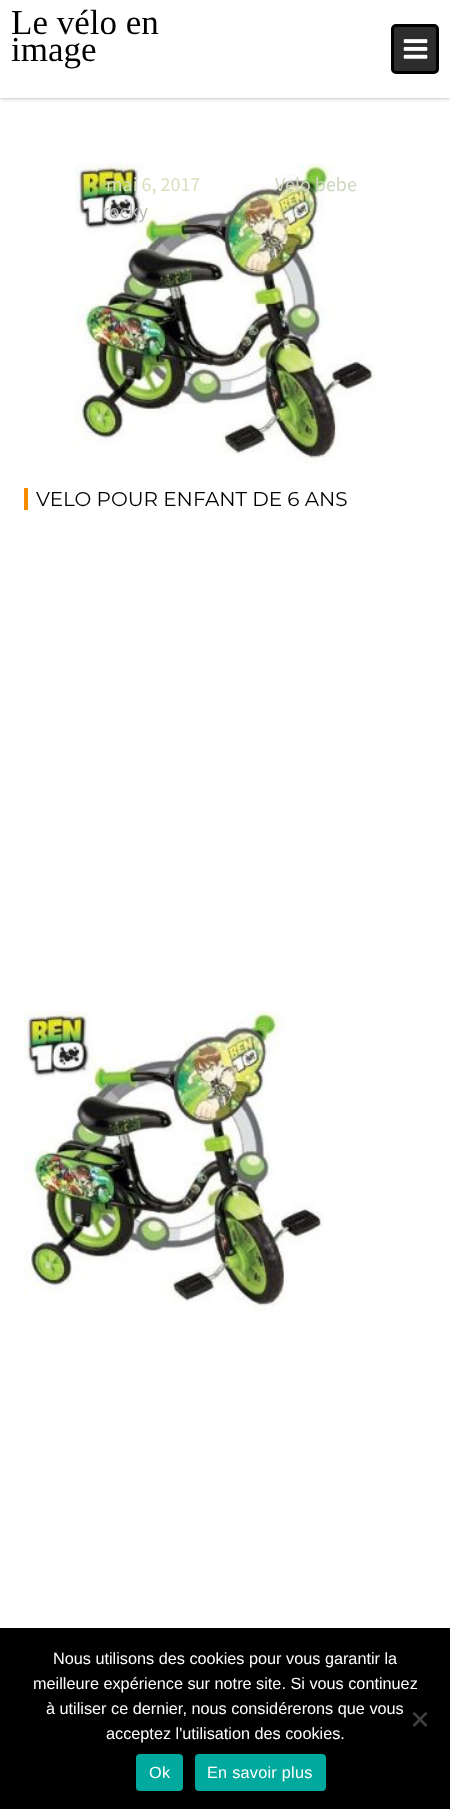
<!DOCTYPE html>
<meta charset="utf-8">
<style>body { margin: 0 } canvas { display: block }</style>
<canvas id="canvas" width="450" height="1809"></canvas>
<img id="img1" src="img_01.png" hidden>
<img id="img2" src="img_02.png" hidden>
<img id="img3" src="img_03.png" hidden>
<script>
window.onload = function () {
	const canvas = document.getElementById("canvas");
	const ctx = canvas.getContext("2d");
	ctx.miterLimit = 4;
	ctx.fontKerning = "normal";
	function txt(s, x, y) {
		ctx.fillText(s, x, y);
	}
	function fill(x, y, w, h) {
		ctx.fillRect(x, y, w, h);
	}
	function round(x, y, w, h, r) {
		ctx.beginPath();
		ctx.roundRect(x, y, w, h, r);
		ctx.fill();
	}
	function img(id, x, y, w, h) {
		ctx.drawImage(document.getElementById(id), x, y, w, h);
	}

	ctx.fillStyle = "#FFFFFF";
	fill(0, 0, 450, 1809);
	ctx.fillStyle = "#AAAAAA";
	ctx.filter = "blur(2px)";
	ctx.beginPath();
	ctx.rect(0, 0, 450, 98);
	ctx.fill();
	ctx.filter = "none";
	ctx.fillStyle = "#FFFFFF";
	fill(0, 0, 450, 98);
	ctx.fillStyle = "#2D2D2D";
	ctx.beginPath();
	ctx.roundRect(392.5, 25.5, 45, 47, 3.5);
	ctx.fill();
	ctx.strokeStyle = "#000000";
	ctx.lineWidth = 3;
	ctx.stroke();
	img("img1", 403, 39, 25, 20);
	img("img2", 75, 163, 300, 301);
	ctx.fillStyle = "#F88C00";
	fill(24, 488, 4, 22);
	img("img3", 23, 1011, 301, 300);
	ctx.fillStyle = "#000000";
	fill(0, 1628, 450, 181);
	ctx.fillStyle = "#404040";
	ctx.beginPath();
	ctx.moveTo(425.5, 1712);
	ctx.lineTo(427.5, 1713.5);
	ctx.lineTo(414.5, 1727);
	ctx.lineTo(412.5, 1725);
	ctx.closePath();
	ctx.fill();
	ctx.beginPath();
	ctx.moveTo(412.5, 1713.5);
	ctx.lineTo(414.5, 1712);
	ctx.lineTo(427.5, 1725);
	ctx.lineTo(425.5, 1727);
	ctx.closePath();
	ctx.fill();
	ctx.fillStyle = "#00A99D";
	round(136, 1754, 47, 37, 4);
	round(195, 1754, 131, 37, 4);
	ctx.font = "35px Liberation Serif";
	ctx.fillStyle = "#000000";
	txt("Le vélo en", 11, 34);
	txt("image", 11, 61);
	ctx.font = "20px Source Sans Pro";
	ctx.fillStyle = "#D7E0BF";
	txt("mai 6, 2017", 106, 191);
	ctx.fillStyle = "#B8B8B8";
	txt("rocky", 102, 218);
	ctx.fillStyle = "#CED6C0";
	txt("Velo bebe", 275, 191);
	ctx.font = "20px Montserrat";
	ctx.fillStyle = "#000000";
	txt("VELO POUR ENFANT DE 6 ANS", 36, 506);
	ctx.font = "16.25px Liberation Sans";
	ctx.fillStyle = "#FFFFFF";
	txt("Nous utilisons des cookies pour vous garantir la", 53, 1664);
	txt("meilleure expérience sur notre site. Si vous continuez", 33, 1689);
	txt("à utiliser ce dernier, nous considérerons que vous", 46, 1714);
	txt("acceptez l'utilisation des cookies.", 106, 1739);
	ctx.letterSpacing = "0.25px";
	txt("Ok", 149, 1778);
	txt("En savoir plus", 207, 1778);
};
</script>
